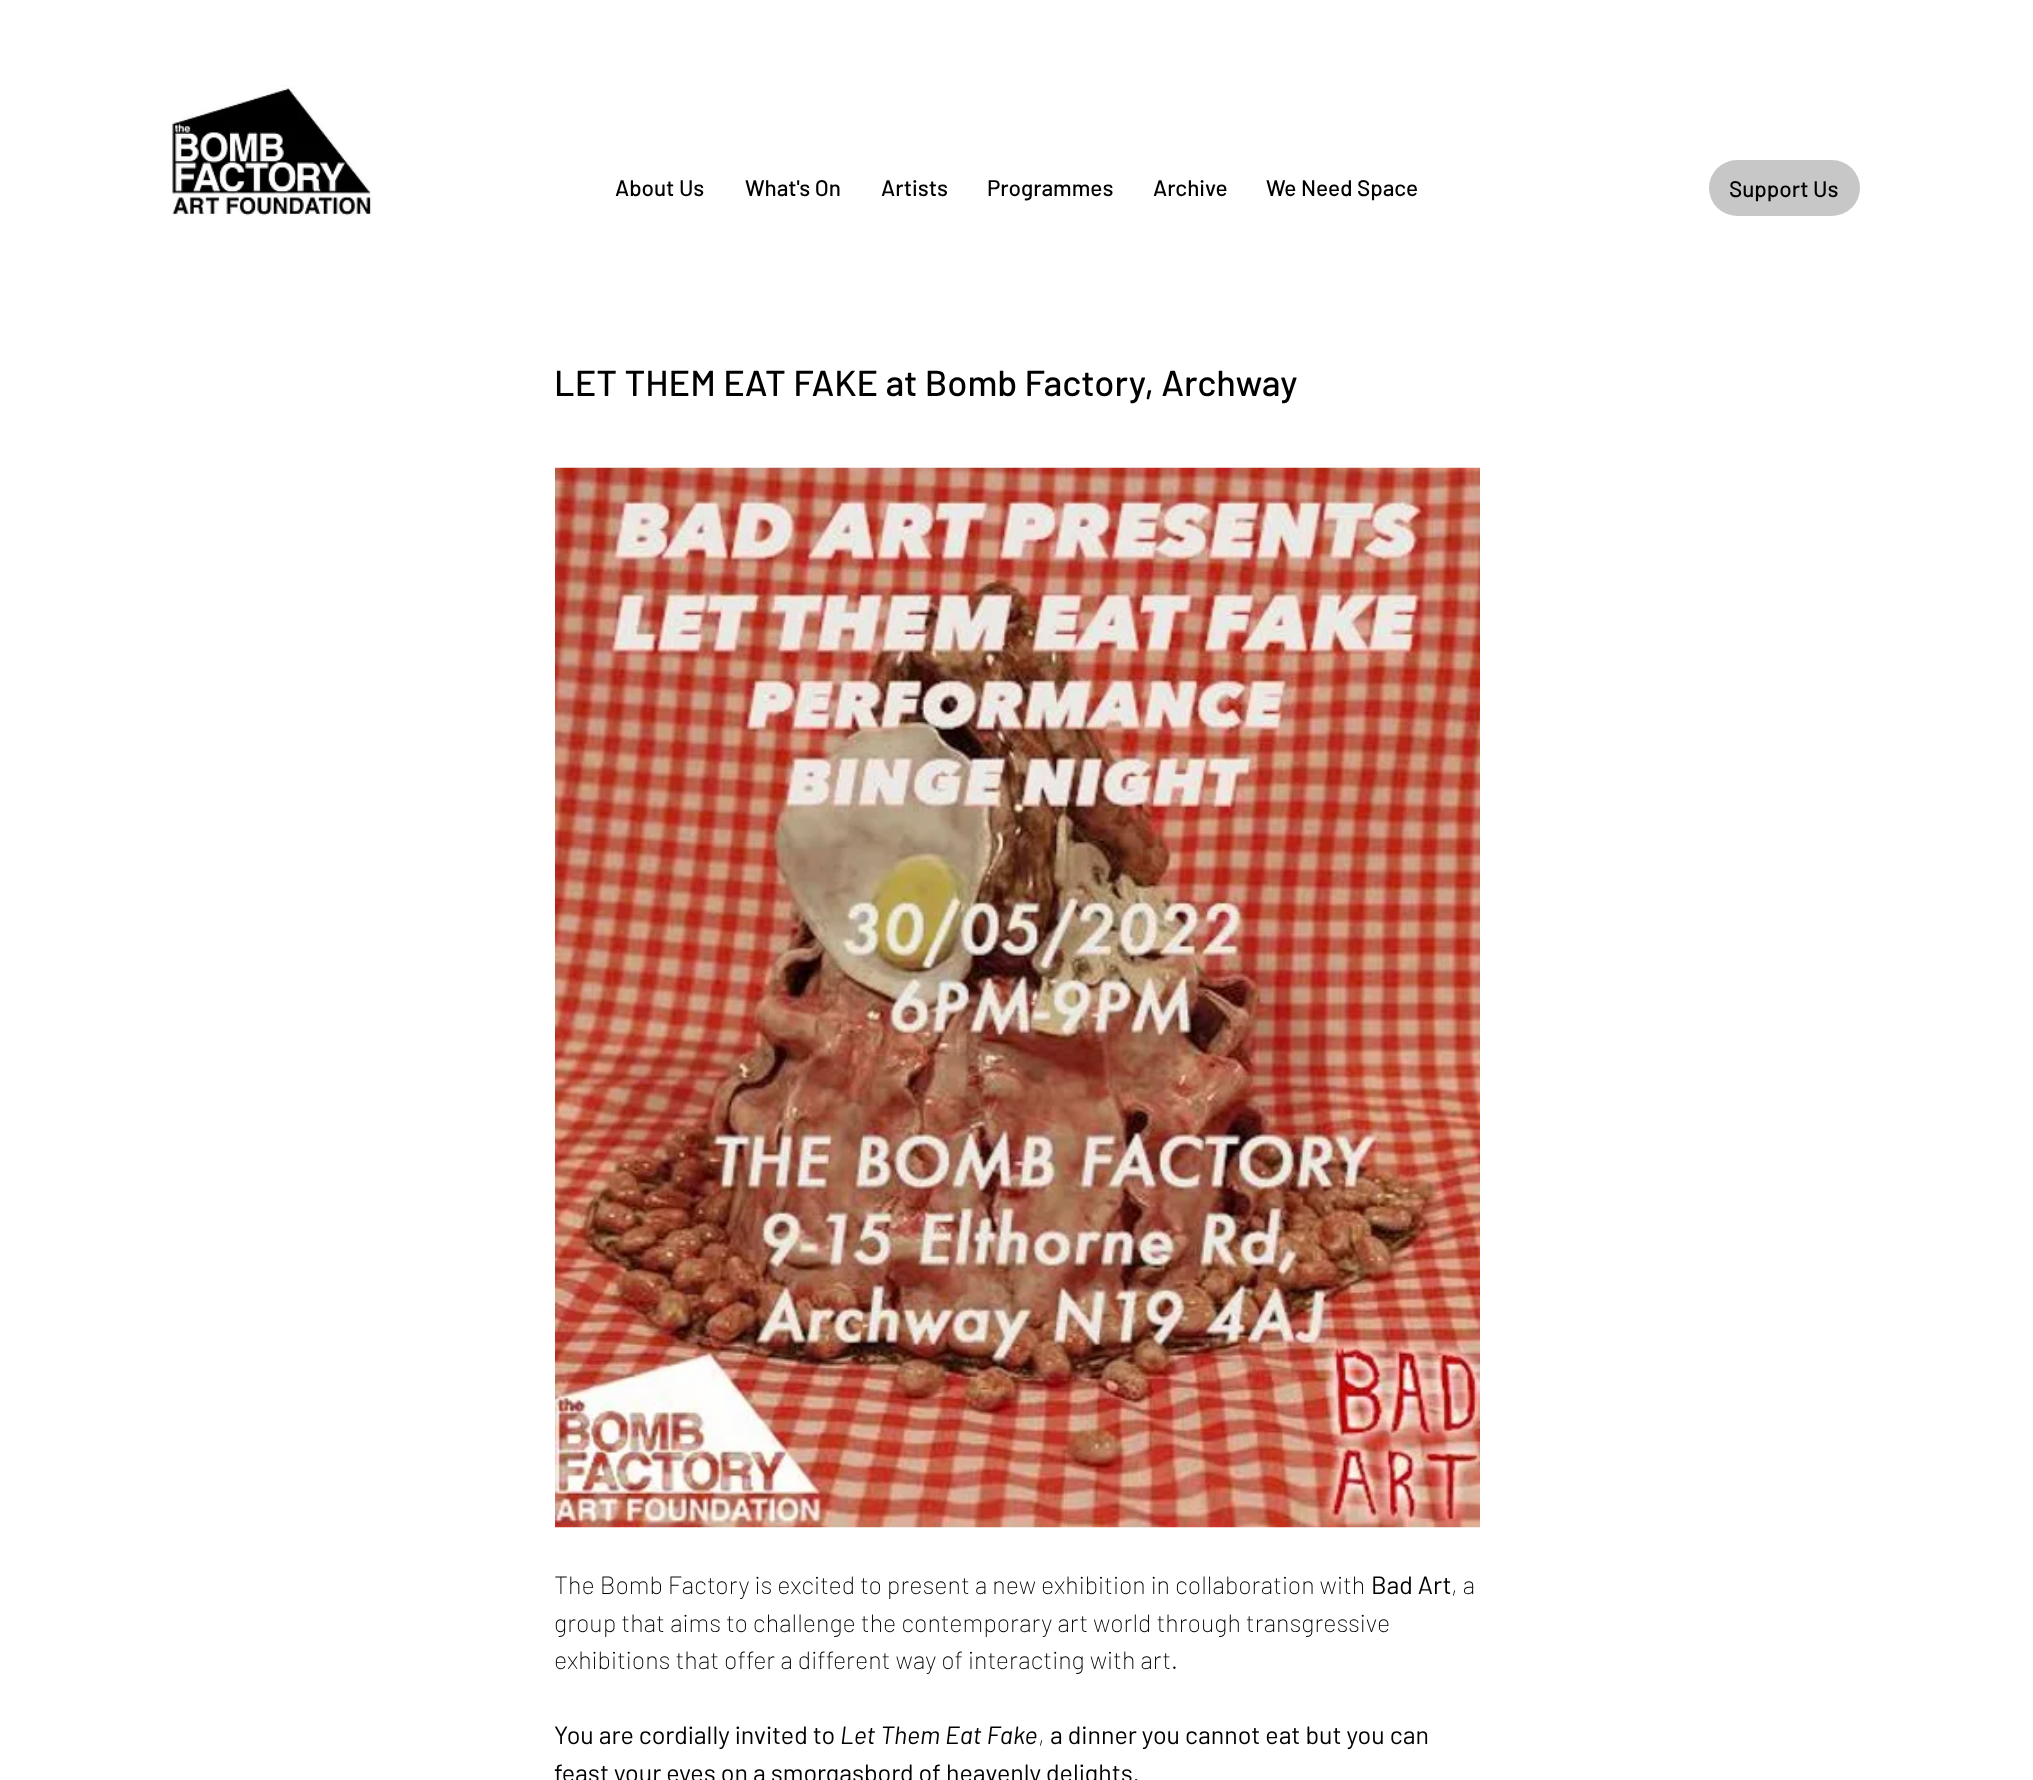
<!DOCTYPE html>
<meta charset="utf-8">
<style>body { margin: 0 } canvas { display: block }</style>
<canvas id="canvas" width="2033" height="1780"></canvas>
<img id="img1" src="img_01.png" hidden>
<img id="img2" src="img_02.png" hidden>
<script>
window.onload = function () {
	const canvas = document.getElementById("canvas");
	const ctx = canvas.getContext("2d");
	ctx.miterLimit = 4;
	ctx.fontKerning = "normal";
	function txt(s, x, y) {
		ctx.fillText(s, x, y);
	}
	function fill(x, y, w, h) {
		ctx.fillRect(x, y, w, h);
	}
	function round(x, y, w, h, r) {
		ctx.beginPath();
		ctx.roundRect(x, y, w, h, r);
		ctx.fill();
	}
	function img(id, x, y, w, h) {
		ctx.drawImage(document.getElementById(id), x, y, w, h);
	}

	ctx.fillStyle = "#FFFFFF";
	fill(0, 0, 2033, 1780);
	img("img1", 172, 85, 200, 131);
	ctx.fillStyle = "#C7C7C7";
	round(1709, 160, 151, 56, 28);
	img("img2", 555, 467, 925, 1061);
	ctx.font = "500 22.5px Barlow";
	ctx.fillStyle = "#000000";
	txt("About Us", 615, 196);
	txt("What's On", 745, 196);
	txt("Artists", 881, 196);
	txt("Programmes", 987, 196);
	txt("Archive", 1153, 196);
	txt("We Need Space", 1266, 196);
	txt("Support Us", 1729, 197);
	ctx.font = "500 36.25px Barlow";
	txt("LET THEM EAT FAKE at Bomb Factory, Archway", 554, 396);
	ctx.font = "200 25px Barlow";
	txt("The Bomb Factory is excited to present a new exhibition in collaboration with", 554, 1594);
	ctx.font = "25px Barlow";
	txt("Bad Art", 1371, 1594);
	ctx.font = "200 25px Barlow";
	txt(", a", 1451, 1594);
	txt("group that aims to challenge the contemporary art world through transgressive", 554, 1632);
	txt("exhibitions that offer a different way of interacting with art.", 554, 1669);
	ctx.font = "25px Barlow";
	txt("You are cordially invited to", 554, 1744);
	ctx.font = "italic 25px Barlow";
	txt("Let Them Eat Fake", 840, 1744);
	ctx.font = "200 25px Barlow";
	txt(",", 1038, 1744);
	ctx.font = "25px Barlow";
	txt("a dinner you cannot eat but you can", 1050, 1744);
	txt("feast your eyes on a smorgasbord of heavenly delights.", 554, 1782);
};
</script>
